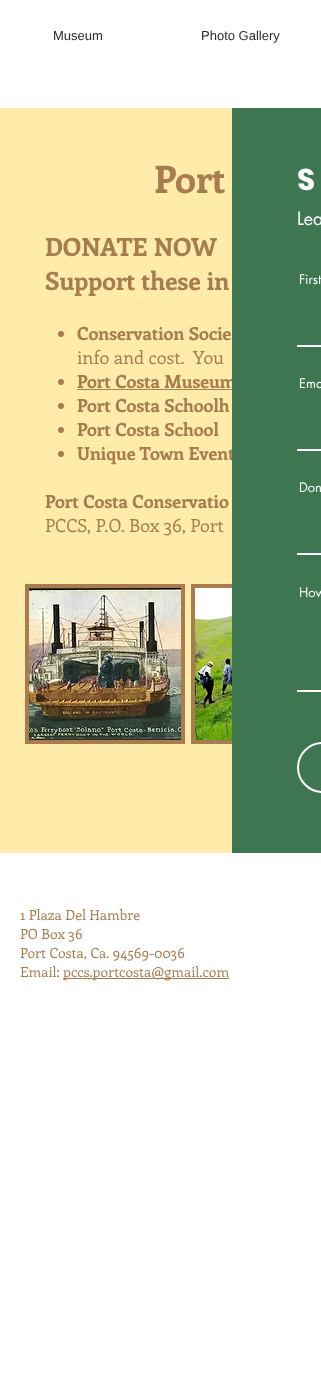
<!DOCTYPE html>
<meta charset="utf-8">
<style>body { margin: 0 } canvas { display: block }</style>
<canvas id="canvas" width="321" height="1397"></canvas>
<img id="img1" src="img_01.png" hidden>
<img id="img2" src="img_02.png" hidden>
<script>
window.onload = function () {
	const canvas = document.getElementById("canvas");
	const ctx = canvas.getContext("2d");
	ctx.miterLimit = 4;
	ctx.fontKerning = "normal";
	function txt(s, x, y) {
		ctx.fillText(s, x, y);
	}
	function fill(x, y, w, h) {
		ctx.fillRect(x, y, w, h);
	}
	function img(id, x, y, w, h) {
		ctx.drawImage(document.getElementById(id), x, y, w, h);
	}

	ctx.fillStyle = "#FFFFFF";
	fill(0, 0, 321, 1397);
	ctx.fillStyle = "#FFEBAA";
	fill(0, 108, 232, 745);
	ctx.fillStyle = "#A87C4F";
	ctx.beginPath();
	ctx.arc(61, 334, 3, 0, Math.PI * 2);
	ctx.fill();
	ctx.beginPath();
	ctx.arc(61, 382, 3, 0, Math.PI * 2);
	ctx.fill();
	fill(77, 389, 159, 1);
	ctx.beginPath();
	ctx.arc(61, 406, 3, 0, Math.PI * 2);
	ctx.fill();
	ctx.beginPath();
	ctx.arc(61, 430, 3, 0, Math.PI * 2);
	ctx.fill();
	ctx.beginPath();
	ctx.arc(61, 454, 3, 0, Math.PI * 2);
	ctx.fill();
	fill(25, 584, 160, 160);
	img("img1", 29, 588, 152, 152);
	fill(191, 584, 41, 160);
	img("img2", 195, 588, 37, 152);
	fill(63, 978, 166, 1);
	ctx.font = "13px Liberation Sans";
	ctx.fillStyle = "#2A2A2A";
	txt("Museum", 53, 40);
	txt("Photo Gallery", 201, 40);
	ctx.font = "bold 38px Enriqueta";
	ctx.fillStyle = "#A87C4F";
	txt("Port", 154, 193);
	ctx.font = "bold 25px Enriqueta";
	txt("DONATE NOW", 45, 256);
	txt("Support these in", 45, 290);
	ctx.font = "bold 18px Enriqueta";
	txt("Conservation Socie", 77, 340);
	ctx.font = "18px Enriqueta";
	txt("info and cost.  You", 77, 364);
	ctx.font = "bold 18px Enriqueta";
	txt("Port Costa Museum", 77, 388);
	txt("Port Costa Schoolh", 77, 412);
	txt("Port Costa School", 77, 436);
	txt("Unique Town Event", 77, 460);
	ctx.fillStyle = "#3F7652";
	fill(232, 108, 89, 745);
	ctx.beginPath();
	ctx.roundRect(298, 743, 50, 49, 24.5);
	ctx.strokeStyle = "#FFFFFF";
	ctx.lineWidth = 2;
	ctx.stroke();
	ctx.fillStyle = "#FFFFFF";
	fill(297, 690, 24, 2);
	ctx.font = "13px futura";
	txt("How", 299, 597);
	fill(297, 553, 24, 2);
	txt("Don", 299, 492);
	fill(297, 449, 24, 2);
	txt("Ema", 299, 388);
	fill(297, 345, 24, 2);
	txt("First", 299, 284);
	ctx.font = "18px futura";
	txt("Lea", 297, 225);
	ctx.letterSpacing = "2px";
	ctx.font = "bold 30px Poppins";
	txt("S", 297, 190);
	ctx.letterSpacing = "0px";
	ctx.font = "bold 18px Enriqueta";
	ctx.fillStyle = "#A87C4F";
	txt("Port Costa Conservatio", 45, 508);
	ctx.font = "18px Enriqueta";
	txt("PCCS, P.O. Box 36, Port", 45, 532);
	ctx.font = "14px Enriqueta";
	txt("1 Plaza Del Hambre", 20, 920);
	txt("PO Box 36", 20, 939);
	txt("Port Costa, Ca. 94569-0036", 20, 958);
	txt("Email:", 20, 977);
	txt("pccs.portcosta@gmail.com", 63, 977);
};
</script>
